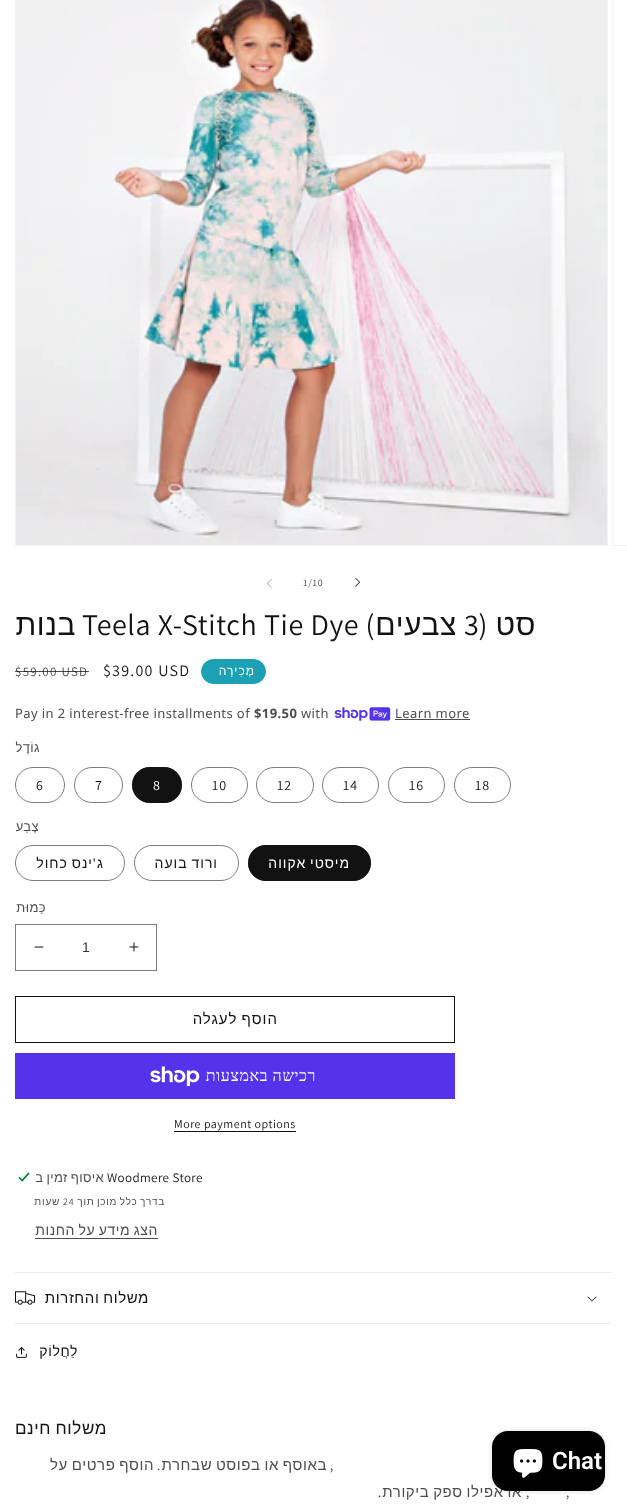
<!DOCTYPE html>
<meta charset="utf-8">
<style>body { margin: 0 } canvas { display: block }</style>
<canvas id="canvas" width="627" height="1512"></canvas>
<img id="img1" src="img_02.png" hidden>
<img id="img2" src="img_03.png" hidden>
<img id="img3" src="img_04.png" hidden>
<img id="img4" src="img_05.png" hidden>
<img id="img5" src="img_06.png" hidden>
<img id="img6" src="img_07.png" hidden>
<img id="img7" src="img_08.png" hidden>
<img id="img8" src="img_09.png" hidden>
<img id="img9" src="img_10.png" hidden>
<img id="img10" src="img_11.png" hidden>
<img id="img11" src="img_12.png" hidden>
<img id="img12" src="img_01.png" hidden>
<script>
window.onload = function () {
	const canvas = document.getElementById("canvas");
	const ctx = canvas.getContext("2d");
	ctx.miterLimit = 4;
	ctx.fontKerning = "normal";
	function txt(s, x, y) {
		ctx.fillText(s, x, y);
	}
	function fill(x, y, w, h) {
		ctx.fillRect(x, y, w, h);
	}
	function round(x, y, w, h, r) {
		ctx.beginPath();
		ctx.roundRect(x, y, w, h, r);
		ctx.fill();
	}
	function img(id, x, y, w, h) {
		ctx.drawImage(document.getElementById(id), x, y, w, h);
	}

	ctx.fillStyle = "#FFFFFF";
	fill(0, 0, 627, 1512);
	ctx.fillStyle = "rgba(0, 0, 0, 0.15)";
	ctx.filter = "blur(2.5px)";
	ctx.beginPath();
	ctx.roundRect(492, 1431, 113, 60, 16);
	ctx.fill();
	ctx.filter = "none";
	ctx.strokeStyle = "#F3F3F3";
	ctx.strokeRect(612.5, -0.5, 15, 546);
	ctx.strokeRect(15.5, -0.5, 592, 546);
	img("img1", 16, 0, 591, 545);
	img("img2", 355, 578, 6, 9);
	img("img3", 267, 578, 5, 10);
	ctx.fillStyle = "#1BA0B4";
	ctx.beginPath();
	ctx.roundRect(201.5, 659.5, 64, 24, 12);
	ctx.fill();
	ctx.strokeStyle = "#1BA0B4";
	ctx.stroke();
	ctx.fillStyle = "#4D4D4D";
	fill(395, 719, 75, 1);
	img("img4", 334, 707, 57, 14);
	ctx.beginPath();
	ctx.roundRect(454.5, 767.5, 56, 35, 17.5);
	ctx.strokeStyle = "#7D7D7D";
	ctx.stroke();
	ctx.beginPath();
	ctx.roundRect(388.5, 767.5, 56, 35, 17.5);
	ctx.stroke();
	ctx.beginPath();
	ctx.roundRect(322.5, 767.5, 56, 35, 17.5);
	ctx.stroke();
	ctx.beginPath();
	ctx.roundRect(256.5, 767.5, 57, 35, 17.5);
	ctx.stroke();
	ctx.beginPath();
	ctx.roundRect(191.5, 767.5, 56, 35, 17.5);
	ctx.stroke();
	ctx.fillStyle = "#121212";
	round(132, 767, 50, 36, 18);
	ctx.beginPath();
	ctx.roundRect(132.5, 767.5, 49, 35, 17.5);
	ctx.strokeStyle = "rgba(18, 18, 18, 0.55)";
	ctx.stroke();
	ctx.beginPath();
	ctx.roundRect(74.5, 767.5, 48, 35, 17.5);
	ctx.strokeStyle = "#7D7D7D";
	ctx.stroke();
	ctx.beginPath();
	ctx.roundRect(15.5, 767.5, 49, 35, 17.5);
	ctx.stroke();
	round(248, 845, 123, 36, 18);
	ctx.beginPath();
	ctx.roundRect(248.5, 845.5, 122, 35, 17.5);
	ctx.strokeStyle = "rgba(18, 18, 18, 0.55)";
	ctx.stroke();
	ctx.beginPath();
	ctx.roundRect(134.5, 845.5, 104, 35, 17.5);
	ctx.strokeStyle = "#7D7D7D";
	ctx.stroke();
	ctx.beginPath();
	ctx.roundRect(15.5, 845.5, 109, 35, 17.5);
	ctx.stroke();
	img("img5", 129, 942, 10, 10);
	img("img6", 34, 946, 10, 2);
	ctx.strokeRect(15.5, 924.5, 141, 46);
	ctx.strokeStyle = "#121212";
	ctx.strokeRect(15.5, 996.5, 439, 46);
	ctx.fillStyle = "#5433EB";
	fill(15, 1053, 440, 46);
	img("img7", 150, 1066, 50, 20);
	ctx.fillStyle = "#121212";
	fill(174, 1131, 122, 1);
	ctx.fillStyle = "#4D4D4D";
	fill(35, 1238, 123, 1);
	img("img8", 18, 1172, 12, 10);
	ctx.fillStyle = "#ECECEC";
	fill(15, 1272, 597, 1);
	fill(15, 1323, 597, 1);
	img("img9", 587, 1296, 10, 6);
	img("img10", 15, 1291, 20, 14);
	img("img11", 16, 1347, 11, 11);
	ctx.letterSpacing = "0.75px";
	ctx.font = "10px Assistant";
	ctx.fillStyle = "#4D4D4D";
	txt("1/10", 303, 586);
	ctx.letterSpacing = "0.6px";
	ctx.direction = "rtl";
	ctx.font = "30px Liberation Sans";
	ctx.fillStyle = "#121212";
	txt("סט", 536, 635);
	ctx.font = "30px Assistant";
	txt("(", 488, 635);
	ctx.direction = "ltr";
	txt("3", 464, 635);
	ctx.direction = "rtl";
	ctx.font = "30px Liberation Sans";
	txt("צבעים", 457, 635);
	ctx.font = "30px Assistant";
	txt(")", 375, 635);
	ctx.direction = "ltr";
	txt("Teela X-Stitch Tie Dye", 82, 635);
	ctx.direction = "rtl";
	ctx.font = "30px Liberation Sans";
	txt("בנות", 76, 635);
	ctx.letterSpacing = "1px";
	ctx.font = "12px Liberation Sans";
	ctx.fillStyle = "#FFFFFF";
	txt("מְכִירָה", 255, 675);
	ctx.letterSpacing = "1.25px";
	ctx.direction = "ltr";
	ctx.font = "16px Assistant";
	ctx.fillStyle = "#121212";
	txt("$39.00 USD", 103, 676);
	ctx.font = "13px Assistant";
	ctx.fillStyle = "#4D4D4D";
	txt("$59.00 USD", 15, 676);
	ctx.fillStyle = "rgba(18, 18, 18, 0.75)";
	fill(15, 671, 74, 1);
	ctx.letterSpacing = "0.4px";
	ctx.font = "13px Noto Sans";
	ctx.fillStyle = "#4D4D4D";
	txt("Learn more", 395, 718);
	txt("with", 301, 718);
	ctx.font = "bold 13px Noto Sans";
	txt("$19.50", 254, 718);
	ctx.font = "13px Noto Sans";
	txt("Pay in 2 interest-free installments of", 15, 718);
	ctx.direction = "rtl";
	ctx.font = "13px Liberation Sans";
	txt("גוֹדֶל", 40, 752);
	ctx.letterSpacing = "1px";
	ctx.direction = "ltr";
	ctx.font = "14px Assistant";
	ctx.fillStyle = "#121212";
	txt("18", 475, 790);
	txt("16", 409, 790);
	txt("14", 343, 790);
	txt("12", 277, 790);
	txt("10", 212, 790);
	ctx.fillStyle = "#FFFFFF";
	txt("8", 153, 790);
	ctx.fillStyle = "#121212";
	txt("7", 95, 790);
	txt("6", 36, 790);
	ctx.letterSpacing = "0.4px";
	ctx.direction = "rtl";
	ctx.font = "13px Liberation Sans";
	ctx.fillStyle = "#4D4D4D";
	txt("צֶבַע", 39, 831);
	ctx.letterSpacing = "1px";
	ctx.wordSpacing = "-1px";
	ctx.font = "14px Liberation Sans";
	ctx.fillStyle = "#FFFFFF";
	txt("מיסטי אקווה", 350, 868);
	ctx.fillStyle = "#121212";
	txt("ורוד בועה", 218, 868);
	ctx.wordSpacing = "0px";
	txt("ג", 104, 868);
	ctx.font = "14px Assistant";
	txt("'", 97, 868);
	ctx.wordSpacing = "-1px";
	ctx.font = "14px Liberation Sans";
	txt("ינס כחול", 93, 868);
	ctx.letterSpacing = "0.4px";
	ctx.wordSpacing = "0px";
	ctx.font = "13px Liberation Sans";
	ctx.fillStyle = "#4D4D4D";
	txt("כַּמוּת", 46, 912);
	ctx.letterSpacing = "0px";
	ctx.direction = "ltr";
	ctx.font = "14px Liberation Sans";
	ctx.fillStyle = "#363636";
	txt("1", 82, 952);
	ctx.letterSpacing = "1px";
	ctx.wordSpacing = "-1px";
	ctx.direction = "rtl";
	ctx.font = "15px Liberation Sans";
	ctx.fillStyle = "#121212";
	txt("הוסף לעגלה", 278, 1024);
	ctx.letterSpacing = "0.6px";
	ctx.wordSpacing = "0px";
	ctx.font = "16px Liberation Serif";
	ctx.fillStyle = "#FFFFFF";
	txt("רכישה באמצעות", 316, 1081);
	ctx.letterSpacing = "0.5px";
	ctx.direction = "ltr";
	ctx.font = "12px Assistant";
	ctx.fillStyle = "#121212";
	txt("More payment options", 174, 1128);
	ctx.letterSpacing = "0.4px";
	ctx.font = "13px Assistant";
	txt("Woodmere Store", 107, 1182);
	ctx.wordSpacing = "-1px";
	ctx.direction = "rtl";
	ctx.font = "13px Liberation Sans";
	ctx.fillStyle = "#4D4D4D";
	txt("איסוף זמין ב", 104, 1182);
	ctx.letterSpacing = "0.75px";
	ctx.font = "10px Liberation Sans";
	txt("בדרך כלל מוכן תוך", 165, 1205);
	ctx.wordSpacing = "0px";
	ctx.direction = "ltr";
	ctx.font = "10px Assistant";
	txt("24", 63, 1205);
	ctx.direction = "rtl";
	ctx.font = "10px Liberation Sans";
	txt("שעות", 60, 1205);
	ctx.letterSpacing = "0.6px";
	ctx.wordSpacing = "-1px";
	ctx.font = "14px Liberation Sans";
	txt("הצג מידע על החנות", 158, 1235);
	ctx.font = "15px Liberation Sans";
	ctx.fillStyle = "#121212";
	txt("משלוח והחזרות", 149, 1303);
	ctx.wordSpacing = "0px";
	ctx.font = "14px Liberation Sans";
	txt("לַחֲלוֹק", 78, 1356);
	ctx.wordSpacing = "-1px";
	ctx.font = "17px Liberation Sans";
	txt("משלוח חינם", 107, 1434);
	ctx.wordSpacing = "0px";
	ctx.font = "15px Assistant";
	ctx.fillStyle = "#4D4D4D";
	txt(",", 334, 1470);
	ctx.wordSpacing = "-1px";
	ctx.font = "15px Liberation Sans";
	txt("באוסף או בפוסט שבחרת", 327, 1470);
	ctx.wordSpacing = "0px";
	ctx.font = "15px Assistant";
	txt(".", 161, 1470);
	ctx.wordSpacing = "-1px";
	ctx.font = "15px Liberation Sans";
	txt("הוסף פרטים על", 154, 1470);
	ctx.wordSpacing = "0px";
	ctx.font = "15px Assistant";
	txt(",", 570, 1497);
	txt(",", 530, 1497);
	ctx.wordSpacing = "-1px";
	ctx.font = "15px Liberation Sans";
	txt("או אפילו ספק ביקורת", 522, 1497);
	ctx.fillStyle = "#000000";
	round(492, 1431, 113, 60, 16);
	ctx.letterSpacing = "0px";
	ctx.wordSpacing = "0px";
	ctx.direction = "ltr";
	ctx.font = "600 24px Roboto";
	ctx.fillStyle = "#FFFFFF";
	txt("Chat", 552, 1469);
	img("img12", 513, 1449, 30, 29);
	ctx.letterSpacing = "0.6px";
	ctx.direction = "rtl";
	ctx.font = "15px Assistant";
	ctx.fillStyle = "#4D4D4D";
	txt(".", 382, 1497);
};
</script>
